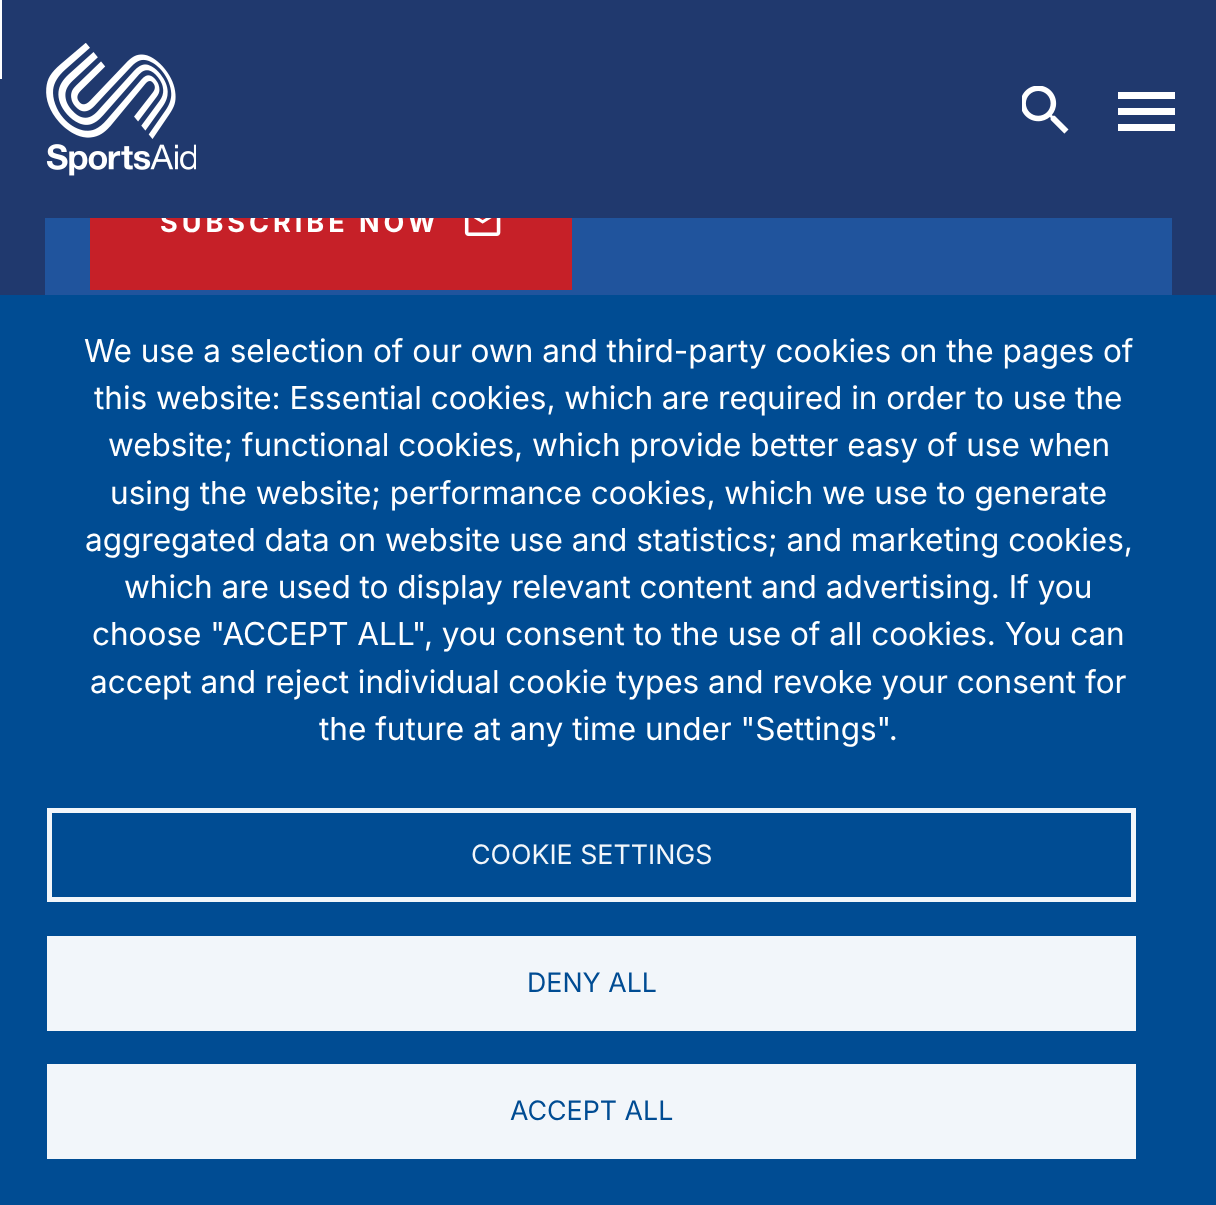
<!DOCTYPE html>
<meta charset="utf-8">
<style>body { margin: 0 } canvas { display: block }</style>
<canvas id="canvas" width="1216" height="1205"></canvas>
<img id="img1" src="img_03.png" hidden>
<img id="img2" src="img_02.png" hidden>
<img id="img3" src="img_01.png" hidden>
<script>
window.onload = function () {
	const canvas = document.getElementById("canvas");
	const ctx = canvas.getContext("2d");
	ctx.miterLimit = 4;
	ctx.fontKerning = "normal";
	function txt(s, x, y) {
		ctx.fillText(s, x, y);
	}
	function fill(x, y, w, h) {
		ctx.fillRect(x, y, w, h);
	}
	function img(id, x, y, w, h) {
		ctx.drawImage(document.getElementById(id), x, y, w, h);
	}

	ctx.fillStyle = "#FFFFFF";
	fill(0, 0, 1216, 1205);
	ctx.fillStyle = "#20396E";
	fill(0, 79, 1216, 216);
	ctx.fillStyle = "#20549D";
	fill(45, 218, 1127, 77);
	ctx.fillStyle = "#C62028";
	fill(90, 218, 482, 72);
	img("img1", 464, 218, 37, 18);
	ctx.fillStyle = "#004C93";
	fill(0, 295, 1216, 910);
	ctx.strokeStyle = "#F2F6FA";
	ctx.lineWidth = 5;
	ctx.strokeRect(49.5, 810.5, 1084, 89);
	ctx.fillStyle = "#F2F6FA";
	fill(47, 936, 1089, 95);
	fill(47, 1064, 1089, 95);
	ctx.letterSpacing = "4px";
	ctx.font = "bold 27px Inter";
	ctx.fillStyle = "#FFFFFF";
	txt("SUBSCRIBE NOW", 160, 232);
	ctx.fillStyle = "#20396E";
	fill(2, 0, 1214, 218);
	ctx.fillStyle = "#FFFFFF";
	fill(1118, 124, 57, 7);
	fill(1118, 108, 57, 7);
	fill(1118, 92, 57, 7);
	img("img2", 1022, 86, 47, 48);
	img("img3", 46, 43, 150, 133);
	ctx.letterSpacing = "0px";
	ctx.font = "31.5px Inter";
	txt("We use a selection of our own and third-party cookies on the pages of", 84, 362);
	txt("this website: Essential cookies, which are required in order to use the", 94, 409);
	txt("website; functional cookies, which provide better easy of use when", 108, 456);
	txt("using the website; performance cookies, which we use to generate", 110, 504);
	txt("aggregated data on website use and statistics; and marketing cookies,", 85, 551);
	txt("which are used to display relevant content and advertising. If you", 124, 598);
	txt("choose \"ACCEPT ALL\", you consent to the use of all cookies. You can", 92, 645);
	txt("accept and reject individual cookie types and revoke your consent for", 90, 693);
	txt("the future at any time under \"Settings\".", 319, 740);
	ctx.font = "26.75px Inter";
	ctx.fillStyle = "#F2F6FA";
	txt("COOKIE SETTINGS", 471, 864);
	ctx.fillStyle = "#004C93";
	txt("DENY ALL", 527, 992);
	txt("ACCEPT ALL", 510, 1120);
};
</script>
